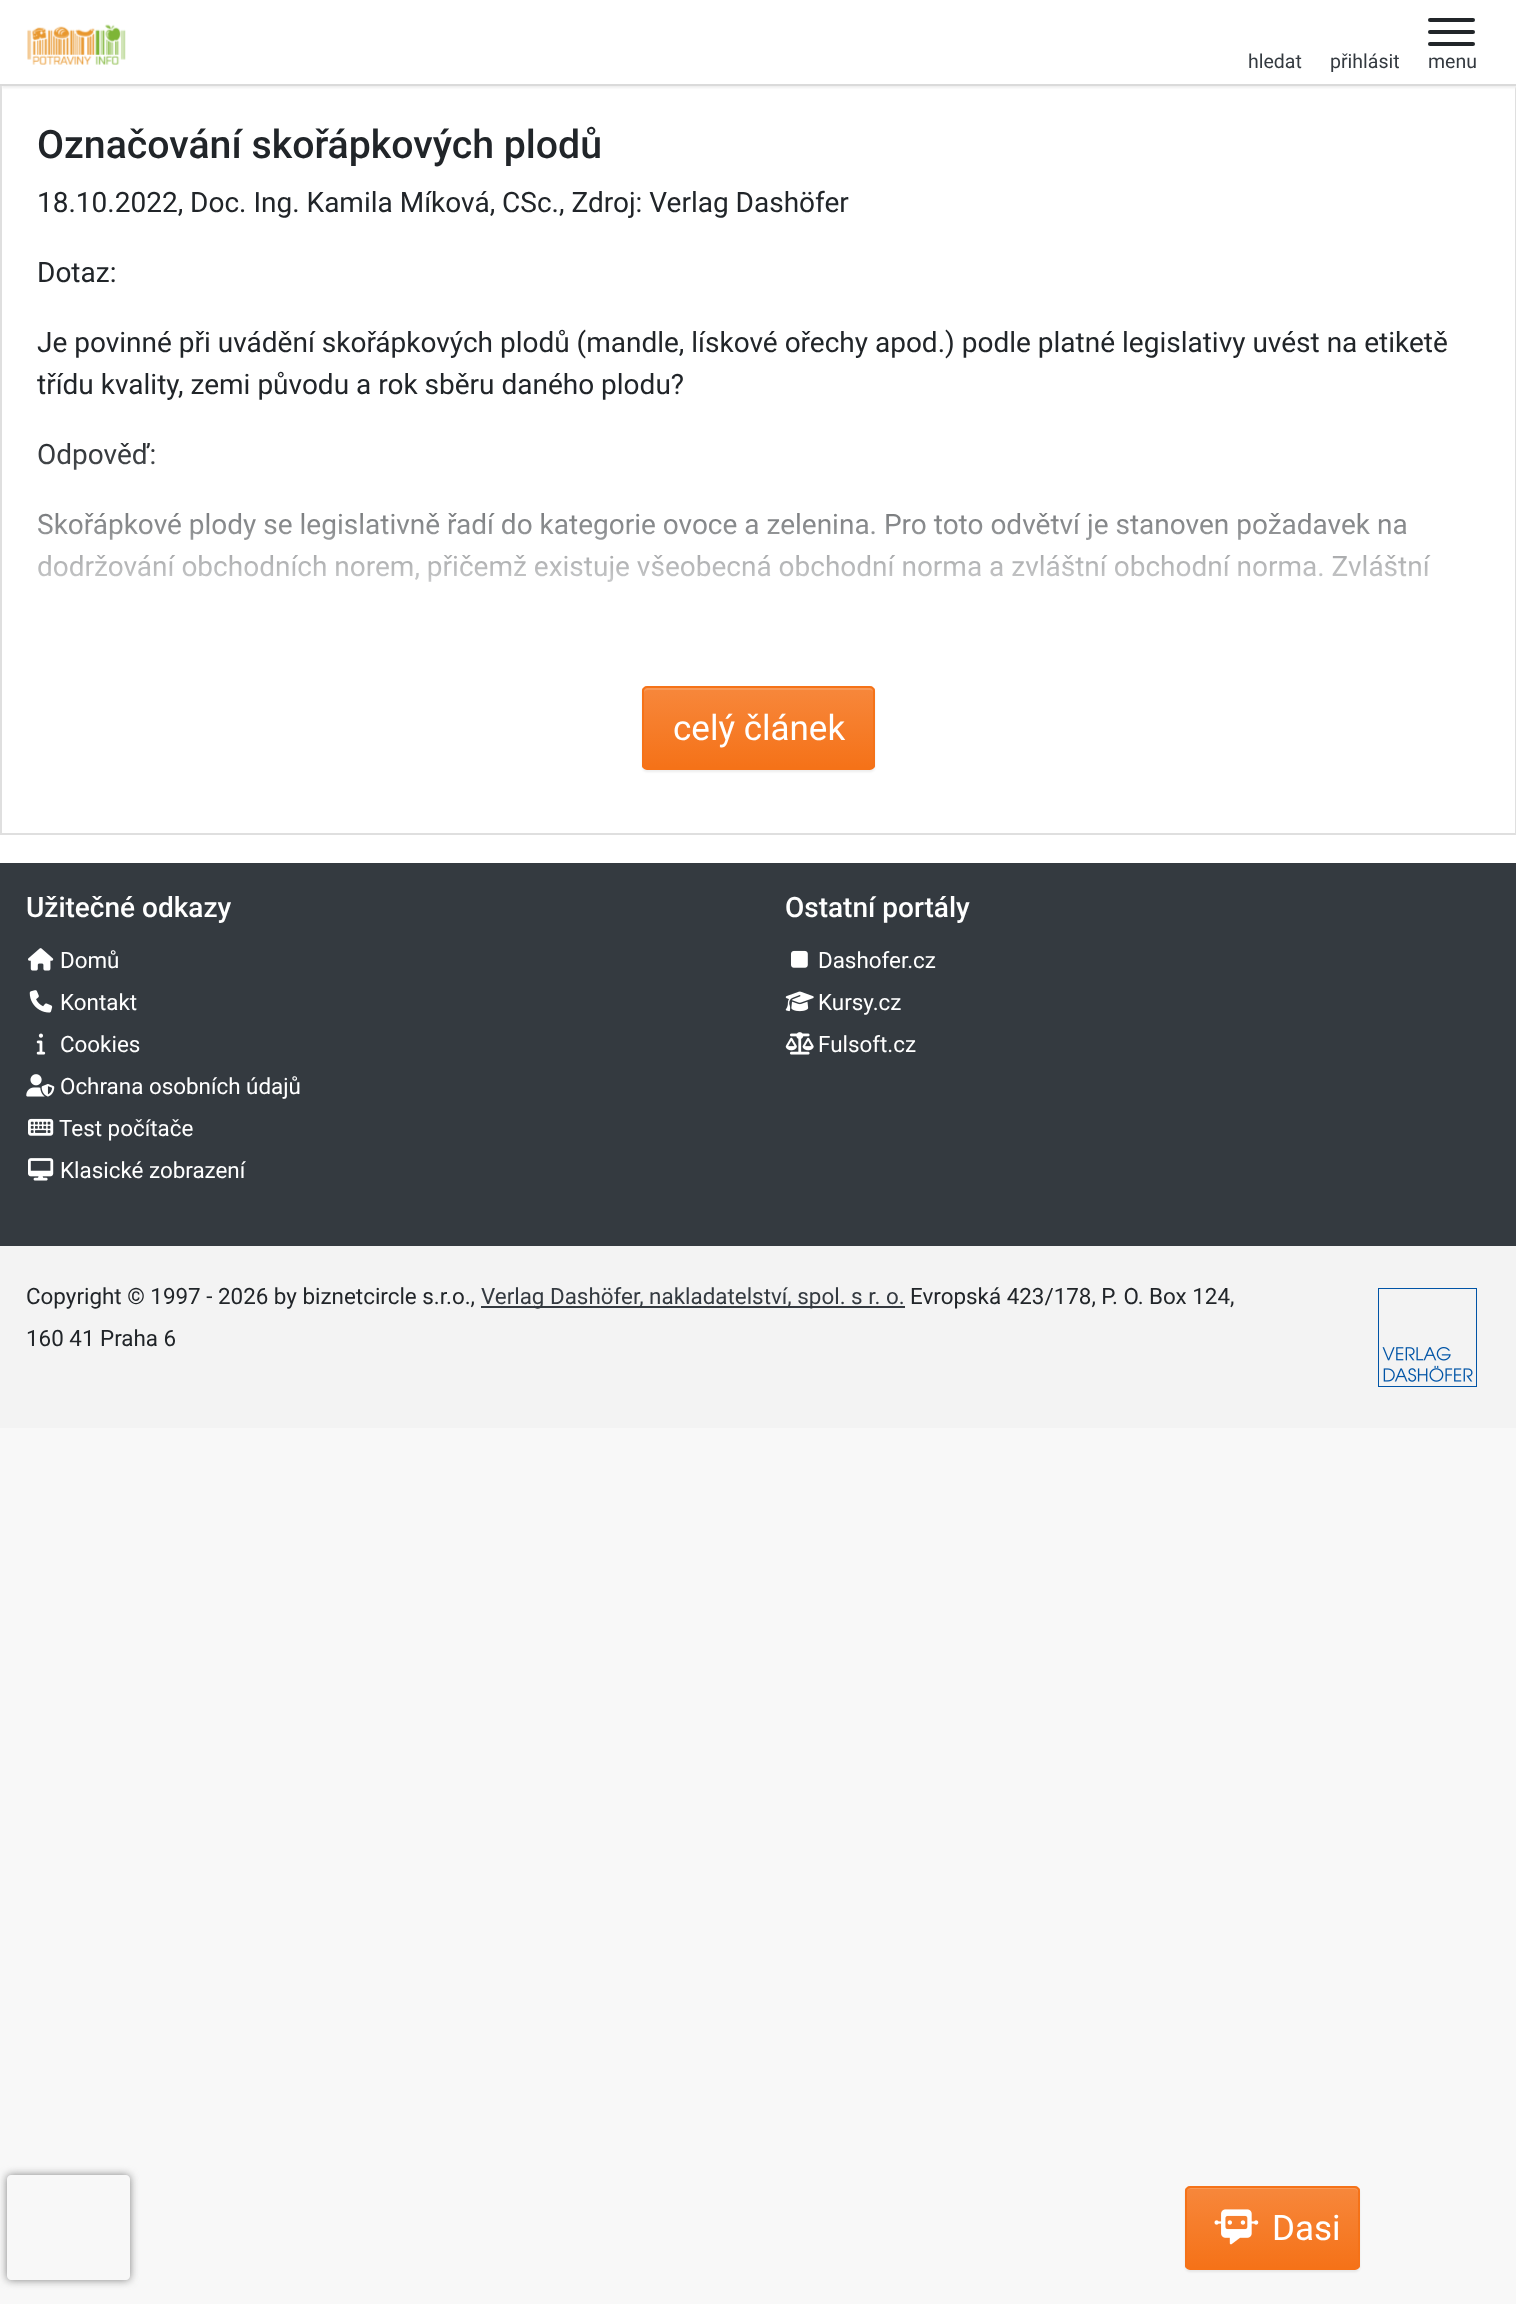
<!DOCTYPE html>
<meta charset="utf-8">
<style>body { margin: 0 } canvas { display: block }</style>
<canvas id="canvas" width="1516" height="2304"></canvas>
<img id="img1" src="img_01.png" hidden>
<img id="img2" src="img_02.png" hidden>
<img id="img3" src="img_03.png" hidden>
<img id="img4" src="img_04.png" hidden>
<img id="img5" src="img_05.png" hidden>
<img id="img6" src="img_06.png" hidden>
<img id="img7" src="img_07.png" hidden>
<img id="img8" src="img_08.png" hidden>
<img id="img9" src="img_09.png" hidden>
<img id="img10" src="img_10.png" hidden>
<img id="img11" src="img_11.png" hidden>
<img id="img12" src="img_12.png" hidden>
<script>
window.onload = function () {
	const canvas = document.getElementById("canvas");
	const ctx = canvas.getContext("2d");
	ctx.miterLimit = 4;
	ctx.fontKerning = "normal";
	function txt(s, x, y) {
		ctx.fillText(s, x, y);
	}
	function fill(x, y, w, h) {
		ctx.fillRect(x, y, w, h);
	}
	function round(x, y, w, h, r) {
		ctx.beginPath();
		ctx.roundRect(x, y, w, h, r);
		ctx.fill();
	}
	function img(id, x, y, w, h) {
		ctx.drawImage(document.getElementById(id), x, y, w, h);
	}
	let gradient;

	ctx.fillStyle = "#F8F8F8";
	fill(0, 0, 1516, 2304);
	ctx.fillStyle = "#FFFFFF";
	ctx.beginPath();
	ctx.rect(1, 85, 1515, 749);
	ctx.fill();
	ctx.strokeStyle = "#DFDFDF";
	ctx.lineWidth = 2;
	ctx.stroke();
	ctx.fillStyle = "#EEEEEE";
	ctx.filter = "blur(1px)";
	ctx.beginPath();
	ctx.rect(2, 2, 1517, 86);
	ctx.fill();
	ctx.filter = "none";
	ctx.fillStyle = "#FFFFFF";
	fill(0, 0, 1516, 84);
	ctx.fillStyle = "#DADADA";
	fill(0, 84, 1516, 2);
	img("img1", 27, 24, 99, 41);
	ctx.fillStyle = "#212529";
	round(1428, 18, 47, 4, 2);
	round(1428, 30, 47, 4, 2);
	round(1428, 42, 47, 4, 2);
	ctx.fillStyle = "rgba(0, 0, 0, 0.07)";
	ctx.filter = "blur(1px)";
	ctx.beginPath();
	ctx.roundRect(642, 688, 233, 84, 5);
	ctx.fill();
	ctx.filter = "none";
	ctx.save();
	ctx.beginPath();
	ctx.roundRect(642, 686, 233, 84, 5);
	ctx.clip();
	gradient = ctx.createLinearGradient(759, 688, 759, 768);
	gradient.addColorStop(0, "#F7873B");
	gradient.addColorStop(1, "#F57218");
	ctx.fillStyle = gradient;
	fill(642, 688, 233, 80);
	ctx.restore();
	ctx.fillStyle = "#F89958";
	ctx.beginPath();
	ctx.moveTo(648, 690);
	ctx.lineTo(870, 690);
	ctx.bezierCurveTo(872, 690, 873, 691, 873, 693);
	ctx.bezierCurveTo(873, 690, 872, 688, 869, 688);
	ctx.lineTo(648, 688);
	ctx.bezierCurveTo(645, 688, 644, 690, 644, 693);
	ctx.bezierCurveTo(644, 691, 646, 690, 648, 690);
	ctx.closePath();
	ctx.fill();
	ctx.beginPath();
	ctx.roundRect(643, 687, 231, 82, 4);
	ctx.strokeStyle = "#F57218";
	ctx.stroke();
	ctx.fillStyle = "#FFFFFF";
	fill(0, 835, 1516, 28);
	ctx.fillStyle = "#343A40";
	fill(0, 863, 1516, 383);
	img("img2", 28, 948, 26, 23);
	img("img3", 29, 990, 24, 23);
	img("img4", 36, 1033, 10, 22);
	img("img5", 26, 1074, 29, 23);
	img("img6", 28, 1118, 26, 18);
	img("img7", 28, 1158, 26, 23);
	img("img8", 791, 950, 17, 18);
	img("img9", 785, 991, 29, 21);
	img("img10", 785, 1032, 29, 23);
	ctx.fillStyle = "#F3F3F3";
	fill(0, 1246, 1516, 182);
	ctx.fillStyle = "#343A40";
	fill(481, 1306, 424, 2);
	img("img11", 1378, 1288, 99, 99);
	ctx.fillStyle = "rgba(0, 0, 0, 0.07)";
	ctx.filter = "blur(1px)";
	ctx.beginPath();
	ctx.roundRect(1185, 2188, 175, 84, 5);
	ctx.fill();
	ctx.filter = "none";
	ctx.save();
	ctx.beginPath();
	ctx.roundRect(1185, 2186, 175, 84, 5);
	ctx.clip();
	gradient = ctx.createLinearGradient(1272, 2188, 1272, 2268);
	gradient.addColorStop(0, "#F7873B");
	gradient.addColorStop(1, "#F57218");
	ctx.fillStyle = gradient;
	fill(1185, 2188, 175, 80);
	ctx.restore();
	ctx.fillStyle = "#F89958";
	ctx.beginPath();
	ctx.moveTo(1190, 2189);
	ctx.lineTo(1354, 2189);
	ctx.bezierCurveTo(1356, 2189, 1358, 2191, 1358, 2193);
	ctx.lineTo(1358, 2192);
	ctx.bezierCurveTo(1358, 2190, 1356, 2188, 1354, 2188);
	ctx.lineTo(1191, 2188);
	ctx.bezierCurveTo(1190, 2188, 1188, 2189, 1188, 2190);
	ctx.closePath();
	ctx.fill();
	ctx.beginPath();
	ctx.roundRect(1186, 2187, 173, 82, 4);
	ctx.stroke();
	img("img12", 1214, 2209, 45, 36);
	ctx.save();
	ctx.beginPath();
	ctx.moveTo(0, 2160);
	ctx.lineTo(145, 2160);
	ctx.lineTo(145, 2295);
	ctx.lineTo(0, 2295);
	ctx.closePath();
	ctx.moveTo(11, 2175);
	ctx.lineTo(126, 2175);
	ctx.bezierCurveTo(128, 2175, 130, 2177, 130, 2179);
	ctx.lineTo(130, 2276);
	ctx.bezierCurveTo(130, 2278, 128, 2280, 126, 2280);
	ctx.lineTo(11, 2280);
	ctx.bezierCurveTo(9, 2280, 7, 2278, 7, 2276);
	ctx.lineTo(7, 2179);
	ctx.bezierCurveTo(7, 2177, 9, 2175, 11, 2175);
	ctx.closePath();
	ctx.clip("evenodd");
	ctx.fillStyle = "#808080";
	ctx.filter = "blur(4.5px)";
	ctx.beginPath();
	ctx.roundRect(7, 2175, 123, 105, 4);
	ctx.fill();
	ctx.filter = "none";
	ctx.restore();
	ctx.font = "19.5px Roboto";
	ctx.fillStyle = "#343A40";
	txt("hledat", 1248, 68);
	txt("přihlásit", 1330, 68);
	txt("menu", 1428, 68);
	ctx.font = "500 39.25px Roboto";
	ctx.fillStyle = "#212529";
	txt("Označování skořápkových plodů", 37, 158);
	ctx.font = "28px Roboto";
	txt("18.10.2022, Doc. Ing. Kamila Míková, CSc., Zdroj: Verlag Dashöfer", 37, 212);
	txt("Dotaz:", 37, 282);
	txt("Je povinné při uvádění skořápkových plodů (mandle, lískové ořechy apod.) podle platné legislativy uvést na etiketě", 37, 352);
	txt("třídu kvality, zemi původu a rok sběru daného plodu?", 37, 394);
	txt("Odpověď:", 37, 464);
	txt("Skořápkové plody se legislativně řadí do kategorie ovoce a zelenina. Pro toto odvětví je stanoven požadavek na", 37, 534);
	txt("dodržování obchodních norem, přičemž existuje všeobecná obchodní norma a zvláštní obchodní norma. Zvláštní", 37, 576);
	gradient = ctx.createLinearGradient(759, 434, 759, 630);
	gradient.addColorStop(0, "rgba(255, 255, 255, 0)");
	gradient.addColorStop(1, "#FFFFFF");
	ctx.fillStyle = gradient;
	fill(37, 443, 1394, 139);
	ctx.font = "35px Roboto";
	ctx.fillStyle = "#FFFFFF";
	txt("celý článek", 673, 740);
	ctx.font = "500 28px Roboto";
	txt("Užitečné odkazy", 26, 917);
	ctx.font = "22.4px Roboto";
	txt("Domů", 60, 968);
	txt("Kontakt", 60, 1010);
	txt("Cookies", 60, 1052);
	txt("Ochrana osobních údajů", 60, 1094);
	txt("Test počítače", 59, 1136);
	txt("Klasické zobrazení", 60, 1178);
	ctx.font = "500 28px Roboto";
	txt("Ostatní portály", 785, 917);
	ctx.font = "22.4px Roboto";
	txt("Dashofer.cz", 818, 968);
	txt("Kursy.cz", 818, 1010);
	txt("Fulsoft.cz", 818, 1052);
	ctx.fillStyle = "#212529";
	txt("Copyright © 1997 - 2026 by biznetcircle s.r.o.,", 26, 1304);
	ctx.fillStyle = "#343A40";
	txt("Verlag Dashöfer, nakladatelství, spol. s r. o.", 481, 1304);
	ctx.fillStyle = "#212529";
	txt("Evropská 423/178, P. O. Box 124,", 910, 1304);
	txt("160 41 Praha 6", 26, 1346);
	ctx.font = "35px Roboto";
	ctx.fillStyle = "#FFFFFF";
	txt("Dasi", 1272, 2240);
};
</script>
